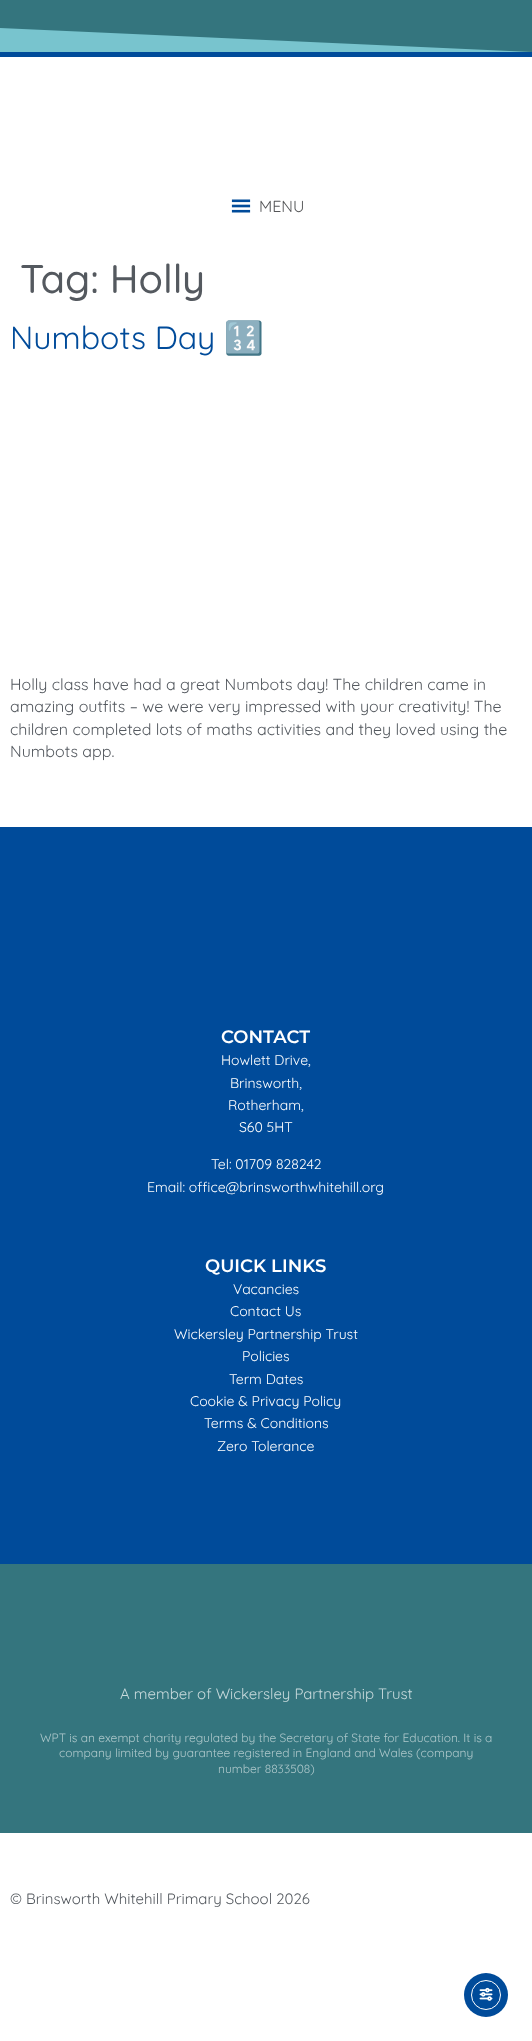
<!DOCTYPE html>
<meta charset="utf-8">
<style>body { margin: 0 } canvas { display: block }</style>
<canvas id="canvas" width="532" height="2041"></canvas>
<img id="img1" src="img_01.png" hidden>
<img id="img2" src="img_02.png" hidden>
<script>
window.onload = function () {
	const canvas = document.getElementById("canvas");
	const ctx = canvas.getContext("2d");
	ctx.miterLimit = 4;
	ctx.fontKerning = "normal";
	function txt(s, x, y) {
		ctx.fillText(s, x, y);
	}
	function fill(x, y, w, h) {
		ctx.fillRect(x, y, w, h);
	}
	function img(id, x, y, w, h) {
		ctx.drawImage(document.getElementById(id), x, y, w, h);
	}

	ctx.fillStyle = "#FFFFFF";
	fill(0, 0, 532, 2041);
	ctx.fillStyle = "#34757E";
	fill(0, 0, 532, 52);
	ctx.fillStyle = "#78C4CE";
	ctx.beginPath();
	ctx.moveTo(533, 52);
	ctx.lineTo(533, 53);
	ctx.lineTo(-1, 53);
	ctx.lineTo(-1, 28);
	ctx.closePath();
	ctx.fill();
	ctx.fillStyle = "#004B9A";
	fill(0, 52, 532, 5);
	img("img1", 231, 199, 20, 14);
	fill(0, 827, 532, 737);
	ctx.fillStyle = "#34757E";
	fill(0, 1564, 532, 269);
	ctx.fillStyle = "#004B9A";
	ctx.beginPath();
	ctx.arc(486, 1995, 22, 0, Math.PI * 2);
	ctx.fill();
	ctx.beginPath();
	ctx.arc(486, 1995, 14.5, 0, Math.PI * 2);
	ctx.strokeStyle = "#FFFFFF";
	ctx.stroke();
	img("img2", 479, 1987, 14, 14);
	ctx.font = "16px Quicksand";
	ctx.fillStyle = "#555658";
	txt("MENU", 259, 212);
	ctx.font = "500 40px Quicksand";
	ctx.fillStyle = "#54595F";
	txt("Tag: Holly", 20, 293);
	ctx.font = "32px Quicksand";
	ctx.fillStyle = "#004B9A";
	txt("Numbots Day", 10, 349);
	ctx.font = "32px Noto Color Emoji";
	txt("🔢", 224, 349);
	ctx.font = "16px Quicksand";
	ctx.fillStyle = "#54595F";
	txt("Holly class have had a great Numbots day! The children came in", 10, 690);
	txt("amazing outfits – we were very impressed with your creativity! The", 10, 712);
	txt("children completed lots of maths activities and they loved using the", 10, 735);
	txt("Numbots app.", 10, 757);
	ctx.font = "600 18px Montserrat";
	ctx.fillStyle = "#FFFFFF";
	txt("CONTACT", 221, 1043);
	ctx.font = "14px Quicksand";
	txt("Howlett Drive,", 221, 1065);
	txt("Brinsworth,", 230, 1088);
	txt("Rotherham,", 228, 1110);
	txt("S60 5HT", 239, 1132);
	txt("Tel: 01709 828242", 211, 1169);
	txt("Email: office@brinsworthwhitehill.org", 147, 1192);
	ctx.font = "600 18px Montserrat";
	txt("QUICK LINKS", 205, 1272);
	ctx.font = "14px Quicksand";
	txt("Vacancies", 233, 1294);
	txt("Contact Us", 230, 1316);
	txt("Wickersley Partnership Trust", 174, 1339);
	txt("Policies", 242, 1361);
	txt("Term Dates", 229, 1384);
	txt("Cookie & Privacy Policy", 190, 1406);
	txt("Terms & Conditions", 204, 1428);
	txt("Zero Tolerance", 217, 1451);
	ctx.font = "15px Quicksand";
	ctx.fillStyle = "#C8DADC";
	txt("A member of Wickersley Partnership Trust", 120, 1699);
	ctx.font = "12px Quicksand";
	ctx.fillStyle = "#AEC8CB";
	txt("WPT is an exempt charity regulated by the Secretary of State for Education. It is a", 40, 1742);
	txt("company limited by guarantee registered in England and Wales (company", 59, 1757);
	txt("number 8833508)", 218, 1773);
	ctx.font = "15px Quicksand";
	ctx.fillStyle = "#54595F";
	txt("© Brinsworth Whitehill Primary School 2026", 10, 1904);
};
</script>
